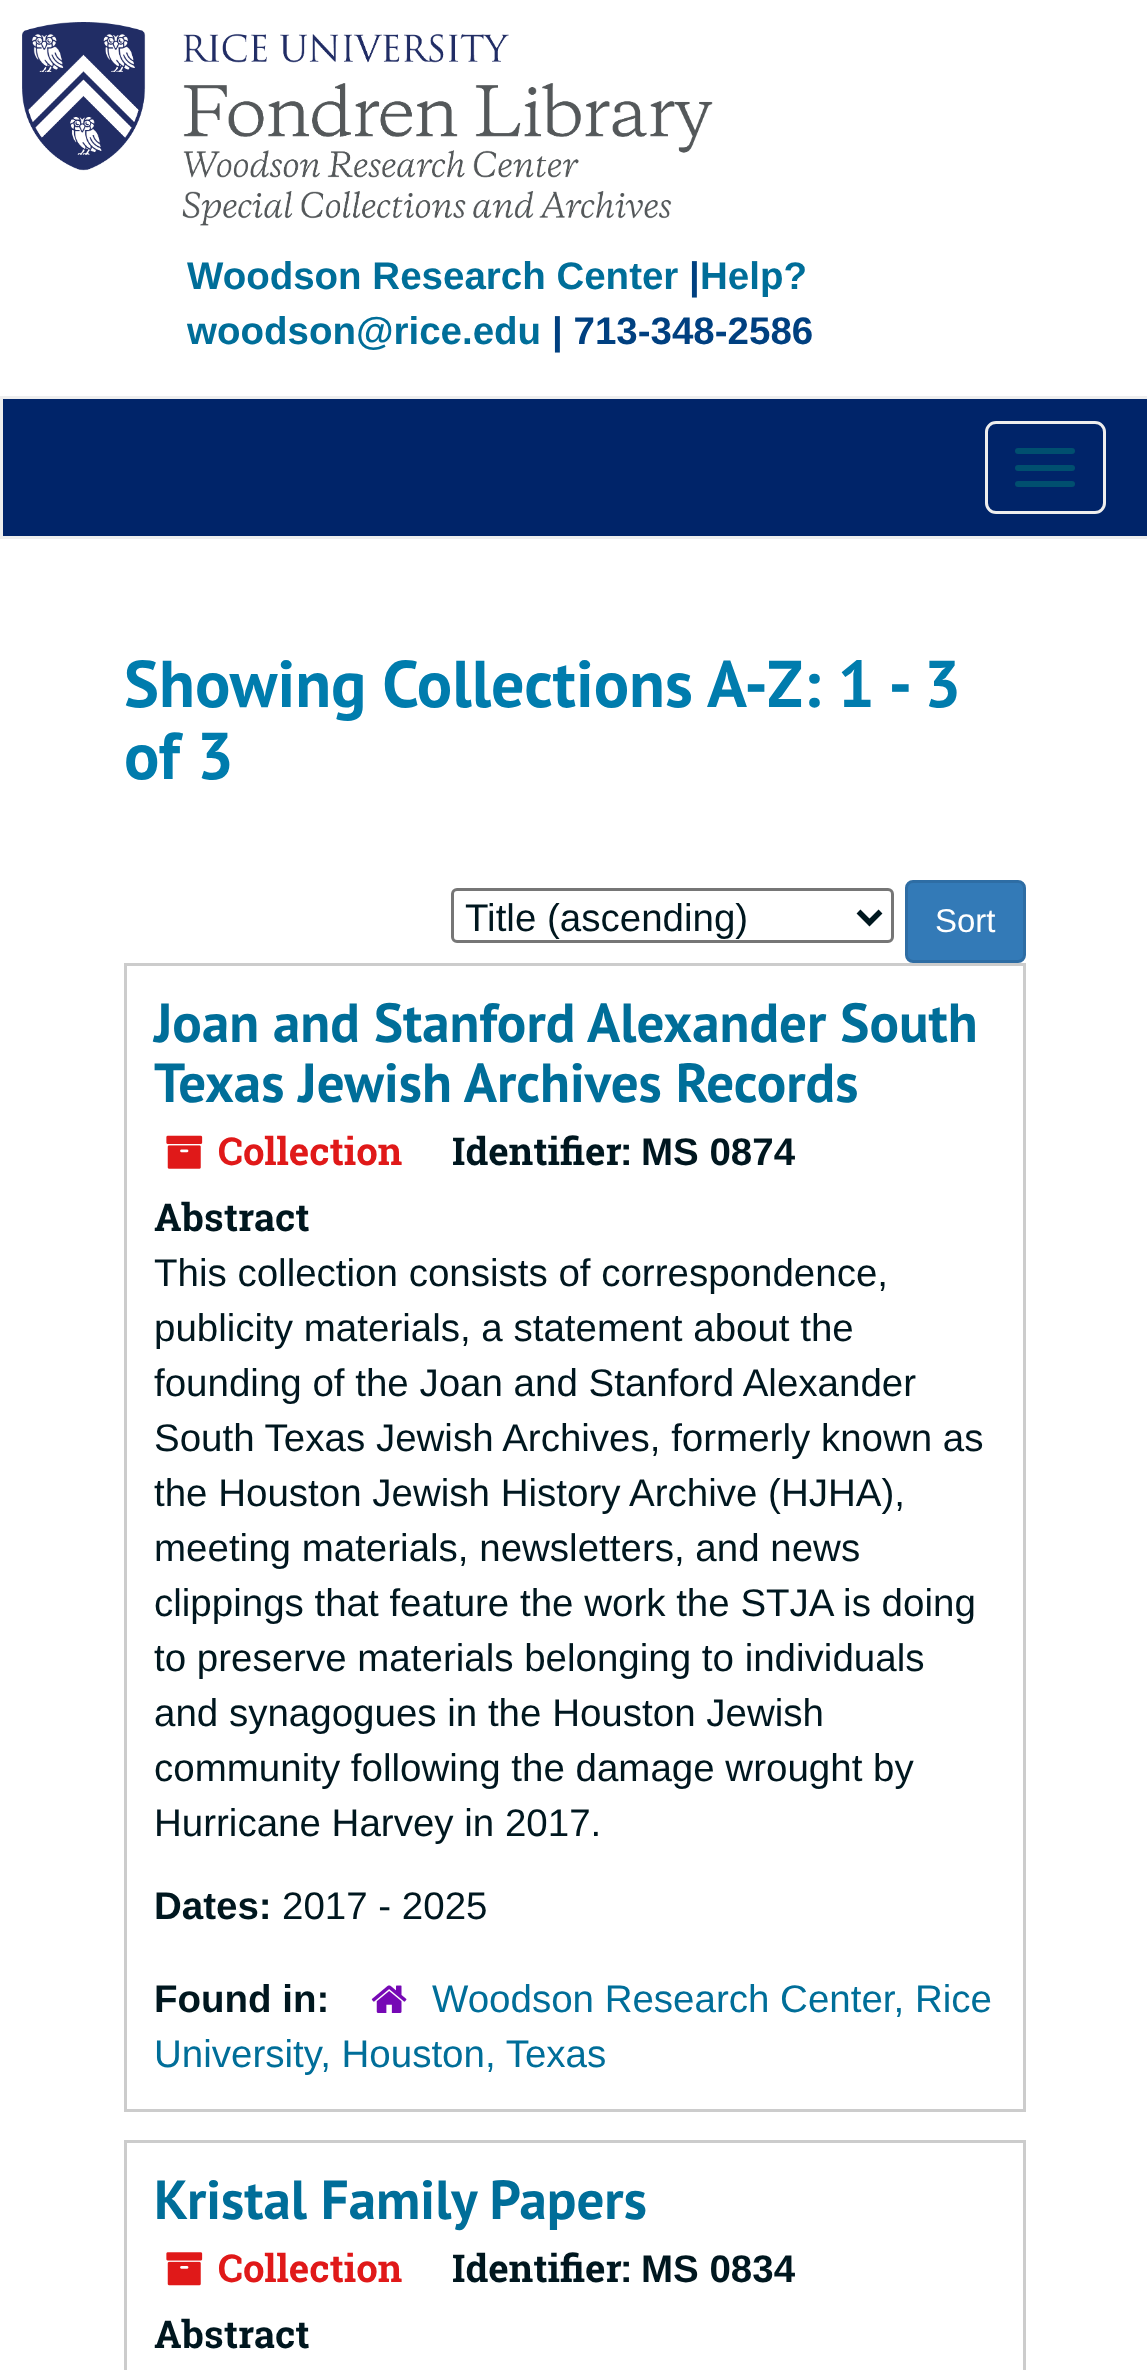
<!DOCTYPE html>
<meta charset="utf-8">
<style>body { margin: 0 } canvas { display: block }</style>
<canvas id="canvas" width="1147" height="2370"></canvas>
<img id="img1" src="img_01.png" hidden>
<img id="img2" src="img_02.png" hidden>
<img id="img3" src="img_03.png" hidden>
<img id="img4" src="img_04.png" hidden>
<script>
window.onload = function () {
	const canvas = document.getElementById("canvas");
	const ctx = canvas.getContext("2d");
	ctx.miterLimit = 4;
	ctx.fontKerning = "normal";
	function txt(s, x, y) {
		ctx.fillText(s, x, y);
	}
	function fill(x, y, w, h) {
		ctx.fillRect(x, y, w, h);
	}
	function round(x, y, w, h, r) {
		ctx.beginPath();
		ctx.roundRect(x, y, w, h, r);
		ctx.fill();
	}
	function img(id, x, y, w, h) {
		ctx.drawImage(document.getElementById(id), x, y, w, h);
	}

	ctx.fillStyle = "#FFFFFF";
	fill(0, 0, 1147, 2370);
	img("img1", 22, 22, 691, 204);
	ctx.fillStyle = "#EEEEEE";
	fill(0, 396, 1147, 143);
	ctx.fillStyle = "#002469";
	fill(3, 399, 1144, 137);
	ctx.beginPath();
	ctx.roundRect(986.5, 422.5, 118, 90, 9.5);
	ctx.strokeStyle = "#EEEEEE";
	ctx.lineWidth = 3;
	ctx.stroke();
	ctx.fillStyle = "#004F6F";
	round(1015, 448, 60, 6, 3);
	round(1015, 465, 60, 6, 3);
	round(1015, 481, 60, 6, 3);
	ctx.beginPath();
	ctx.roundRect(452.5, 889.5, 440, 52, 4.5);
	ctx.strokeStyle = "#767676";
	ctx.stroke();
	ctx.beginPath();
	ctx.moveTo(858.5, 911.5);
	ctx.lineTo(869.5, 922.5);
	ctx.lineTo(880.5, 911.5);
	ctx.strokeStyle = "#00171F";
	ctx.lineWidth = 5.5;
	ctx.stroke();
	ctx.fillStyle = "#337AB7";
	ctx.beginPath();
	ctx.roundRect(906.5, 881.5, 118, 80, 6.5);
	ctx.fill();
	ctx.strokeStyle = "#2E6DA4";
	ctx.lineWidth = 3;
	ctx.stroke();
	ctx.strokeStyle = "#CCCCCC";
	ctx.strokeRect(125.5, 964.5, 899, 1146);
	img("img2", 166, 1135, 37, 34);
	img("img3", 371, 1985, 36, 28);
	ctx.strokeRect(125.5, 2141.5, 899, 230);
	img("img4", 166, 2252, 37, 34);
	ctx.font = "bold 38.5px Liberation Sans";
	ctx.fillStyle = "#006E99";
	txt("Woodson Research Center", 187, 289);
	ctx.fillStyle = "#004080";
	txt("|", 689, 289);
	ctx.fillStyle = "#006E99";
	txt("Help?", 700, 289);
	txt("woodson@rice.edu", 187, 344);
	ctx.fillStyle = "#004080";
	txt("| 713-348-2586", 552, 344);
	ctx.font = "bold 66px PT Sans";
	ctx.fillStyle = "#007CAD";
	txt("Showing Collections A-Z: 1 - 3", 124, 707);
	txt("of 3", 124, 779);
	ctx.font = "38.5px Liberation Sans";
	ctx.fillStyle = "#00171F";
	txt("Title (ascending)", 465, 931);
	ctx.font = "33px Liberation Sans";
	ctx.fillStyle = "#FFFFFF";
	txt("Sort", 935, 932);
	ctx.font = "bold 55px PT Sans";
	ctx.fillStyle = "#006E99";
	txt("Joan and Stanford Alexander South", 154, 1042);
	txt("Texas Jewish Archives Records", 154, 1102);
	ctx.font = "bold 38.5px Roboto Slab";
	ctx.fillStyle = "#E01919";
	txt("Collection", 218, 1165);
	ctx.fillStyle = "#00171F";
	txt("Identifier:", 452, 1165);
	ctx.font = "bold 38.5px Liberation Sans";
	txt("MS 0874", 641, 1165);
	ctx.font = "bold 38.5px Roboto Slab";
	txt("Abstract", 154, 1231);
	ctx.font = "38.5px Liberation Sans";
	txt("This collection consists of correspondence,", 154, 1286);
	txt("publicity materials, a statement about the", 154, 1341);
	txt("founding of the Joan and Stanford Alexander", 154, 1396);
	txt("South Texas Jewish Archives, formerly known as", 154, 1451);
	txt("the Houston Jewish History Archive (HJHA),", 154, 1506);
	txt("meeting materials, newsletters, and news", 154, 1561);
	txt("clippings that feature the work the STJA is doing", 154, 1616);
	txt("to preserve materials belonging to individuals", 154, 1671);
	txt("and synagogues in the Houston Jewish", 154, 1726);
	txt("community following the damage wrought by", 154, 1781);
	txt("Hurricane Harvey in 2017.", 154, 1836);
	ctx.font = "bold 38.5px Liberation Sans";
	txt("Dates:", 154, 1919);
	ctx.font = "38.5px Liberation Sans";
	txt("2017 - 2025", 282, 1919);
	ctx.font = "bold 38.5px Liberation Sans";
	txt("Found in:", 154, 2012);
	ctx.font = "38.5px Liberation Sans";
	ctx.fillStyle = "#006E99";
	txt("Woodson Research Center, Rice", 432, 2012);
	txt("University, Houston, Texas", 154, 2067);
	ctx.font = "bold 55px PT Sans";
	txt("Kristal Family Papers", 154, 2219);
	ctx.font = "bold 38.5px Roboto Slab";
	ctx.fillStyle = "#E01919";
	txt("Collection", 218, 2282);
	ctx.fillStyle = "#00171F";
	txt("Identifier:", 452, 2282);
	ctx.font = "bold 38.5px Liberation Sans";
	txt("MS 0834", 641, 2282);
	ctx.font = "bold 38.5px Roboto Slab";
	txt("Abstract", 154, 2348);
};
</script>
